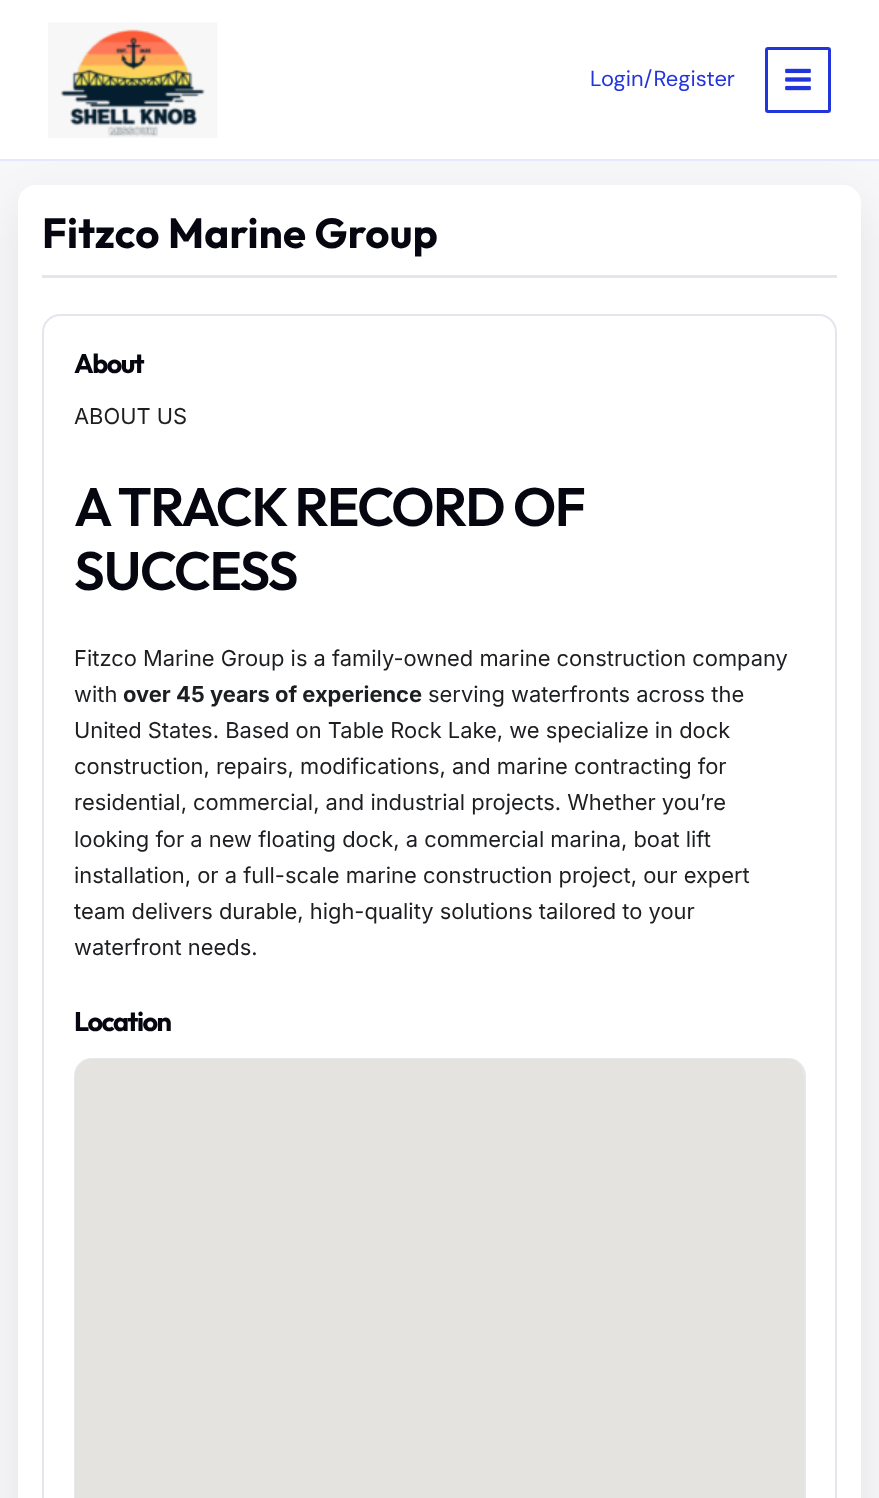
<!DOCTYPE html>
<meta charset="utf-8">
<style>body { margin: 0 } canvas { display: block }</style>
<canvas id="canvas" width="879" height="1498"></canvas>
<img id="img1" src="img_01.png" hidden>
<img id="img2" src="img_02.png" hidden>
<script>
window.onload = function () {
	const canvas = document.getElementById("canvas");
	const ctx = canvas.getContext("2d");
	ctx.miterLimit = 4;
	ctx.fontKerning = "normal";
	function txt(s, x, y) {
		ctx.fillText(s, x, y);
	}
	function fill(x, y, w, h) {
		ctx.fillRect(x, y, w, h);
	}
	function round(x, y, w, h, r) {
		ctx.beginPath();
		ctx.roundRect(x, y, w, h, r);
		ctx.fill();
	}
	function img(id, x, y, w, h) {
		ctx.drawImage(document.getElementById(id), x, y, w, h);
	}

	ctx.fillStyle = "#FFFFFF";
	fill(0, 0, 879, 1498);
	ctx.fillStyle = "#F7F7F9";
	fill(0, 161, 879, 1337);
	ctx.fillStyle = "rgba(0, 0, 0, 0.08)";
	ctx.filter = "blur(22.5px)";
	ctx.beginPath();
	ctx.roundRect(18, 203, 843, 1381, 18);
	ctx.fill();
	ctx.filter = "none";
	ctx.fillStyle = "#E4E7FD";
	fill(0, 159, 879, 2);
	img("img1", 48, 22, 170, 116);
	ctx.beginPath();
	ctx.roundRect(766.5, 48.5, 63, 63, 1.5);
	ctx.strokeStyle = "#2235DD";
	ctx.lineWidth = 3;
	ctx.stroke();
	img("img2", 785, 68, 26, 23);
	ctx.fillStyle = "#FFFFFF";
	round(18, 185, 843, 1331, 18);
	ctx.fillStyle = "#E4E6EB";
	fill(42, 275, 795, 3);
	ctx.beginPath();
	ctx.roundRect(43, 315, 793, 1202, 17);
	ctx.strokeStyle = "#E4E6EB";
	ctx.lineWidth = 2;
	ctx.stroke();
	ctx.beginPath();
	ctx.roundRect(75, 1059, 730, 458, 17);
	ctx.strokeStyle = "#E5E7EB";
	ctx.stroke();
	ctx.fillStyle = "#E5E3DF";
	ctx.beginPath();
	ctx.moveTo(92, 1059);
	ctx.lineTo(787, 1059);
	ctx.bezierCurveTo(796.5, 1059, 804, 1066.5, 804, 1076);
	ctx.lineTo(804, 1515);
	ctx.lineTo(75, 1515);
	ctx.lineTo(75, 1076);
	ctx.bezierCurveTo(75, 1066.5, 82.5, 1059, 92, 1059);
	ctx.closePath();
	ctx.fill();
	ctx.font = "21.9px DM Sans";
	ctx.fillStyle = "#2235DD";
	txt("Login/Register", 590, 86);
	ctx.letterSpacing = "0.25px";
	ctx.font = "bold 42px Outfit";
	ctx.fillStyle = "#05060F";
	txt("Fitzco Marine Group", 42, 248);
	ctx.letterSpacing = "-1.5px";
	ctx.font = "bold 27px Outfit";
	txt("About", 74, 373);
	ctx.letterSpacing = "0px";
	ctx.font = "21.9px Inter";
	ctx.fillStyle = "#1C1E21";
	txt("ABOUT US", 74, 424);
	ctx.letterSpacing = "-1.5px";
	ctx.font = "600 54px Outfit";
	ctx.fillStyle = "#05060F";
	txt("A TRACK RECORD OF", 74, 526);
	txt("SUCCESS", 74, 590);
	ctx.letterSpacing = "0px";
	ctx.font = "21.9px Inter";
	ctx.fillStyle = "#1C1E21";
	txt("Fitzco Marine Group is a family-owned marine construction company", 74, 666);
	txt("with", 74, 702);
	ctx.font = "bold 21.9px Inter";
	txt("over 45 years of experience", 123, 702);
	ctx.font = "21.9px Inter";
	txt("serving waterfronts across the", 428, 702);
	txt("United States. Based on Table Rock Lake, we specialize in dock", 74, 738);
	txt("construction, repairs, modifications, and marine contracting for", 74, 774);
	txt("residential, commercial, and industrial projects. Whether you’re", 74, 810);
	txt("looking for a new floating dock, a commercial marina, boat lift", 74, 847);
	txt("installation, or a full-scale marine construction project, our expert", 74, 883);
	txt("team delivers durable, high-quality solutions tailored to your", 74, 919);
	txt("waterfront needs.", 74, 955);
	ctx.letterSpacing = "-1.5px";
	ctx.font = "bold 27px Outfit";
	ctx.fillStyle = "#05060F";
	txt("Location", 74, 1031);
};
</script>
